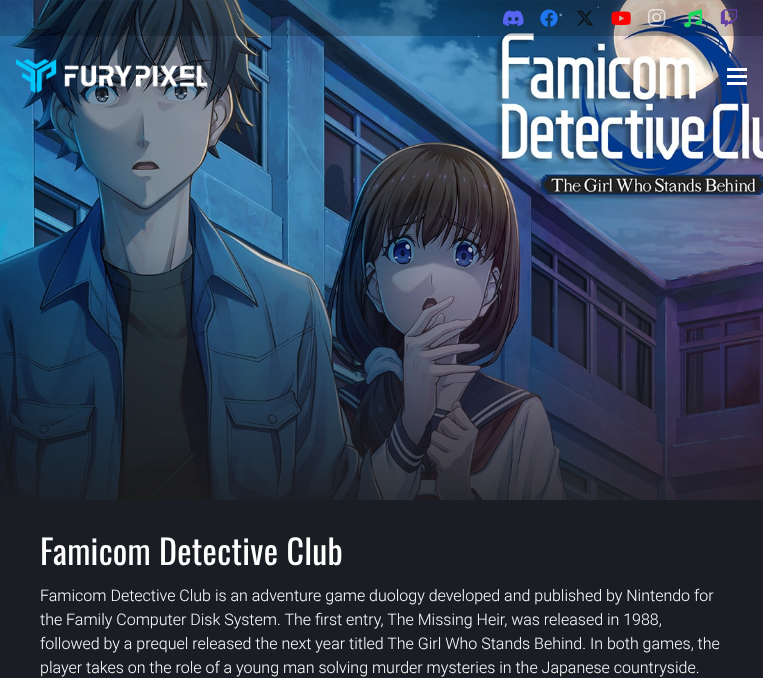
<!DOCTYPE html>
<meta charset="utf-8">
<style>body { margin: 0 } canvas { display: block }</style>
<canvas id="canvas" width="763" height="678"></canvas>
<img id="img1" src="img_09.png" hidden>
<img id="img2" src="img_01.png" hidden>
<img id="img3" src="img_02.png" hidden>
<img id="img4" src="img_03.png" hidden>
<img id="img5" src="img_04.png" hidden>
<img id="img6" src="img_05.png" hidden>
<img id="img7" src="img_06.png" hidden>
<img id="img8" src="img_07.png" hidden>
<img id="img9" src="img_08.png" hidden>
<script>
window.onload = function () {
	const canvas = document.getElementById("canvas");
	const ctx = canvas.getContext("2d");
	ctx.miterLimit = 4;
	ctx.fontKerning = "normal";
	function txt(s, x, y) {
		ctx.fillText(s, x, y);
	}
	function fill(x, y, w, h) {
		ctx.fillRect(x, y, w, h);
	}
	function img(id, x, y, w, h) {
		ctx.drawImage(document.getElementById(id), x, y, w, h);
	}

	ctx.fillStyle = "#1B1D25";
	fill(0, 0, 763, 678);
	img("img1", 0, 0, 763, 500);
	ctx.fillStyle = "rgba(0, 0, 0, 0.2)";
	fill(0, 0, 763, 36);
	img("img2", 502, 10, 22, 17);
	img("img3", 540, 9, 18, 18);
	img("img4", 577, 10, 16, 16);
	img("img5", 611, 11, 20, 14);
	img("img6", 648, 8, 18, 19);
	img("img7", 684, 9, 18, 19);
	img("img8", 720, 9, 18, 18);
	img("img9", 16, 59, 191, 34);
	ctx.fillStyle = "#FFFFFF";
	fill(727, 75, 20, 3);
	fill(727, 68, 20, 3);
	fill(727, 82, 20, 3);
	ctx.letterSpacing = "0.3px";
	ctx.font = "34px Oswald";
	txt("Famicom Detective Club", 40, 565);
	ctx.letterSpacing = "0px";
	ctx.font = "300 16px Roboto";
	txt("Famicom Detective Club is an adventure game duology developed and published by Nintendo for", 40, 601);
	txt("the Family Computer Disk System. The first entry, The Missing Heir, was released in 1988,", 40, 625);
	txt("followed by a prequel released the next year titled The Girl Who Stands Behind. In both games, the", 40, 649);
	txt("player takes on the role of a young man solving murder mysteries in the Japanese countryside.", 40, 673);
};
</script>
